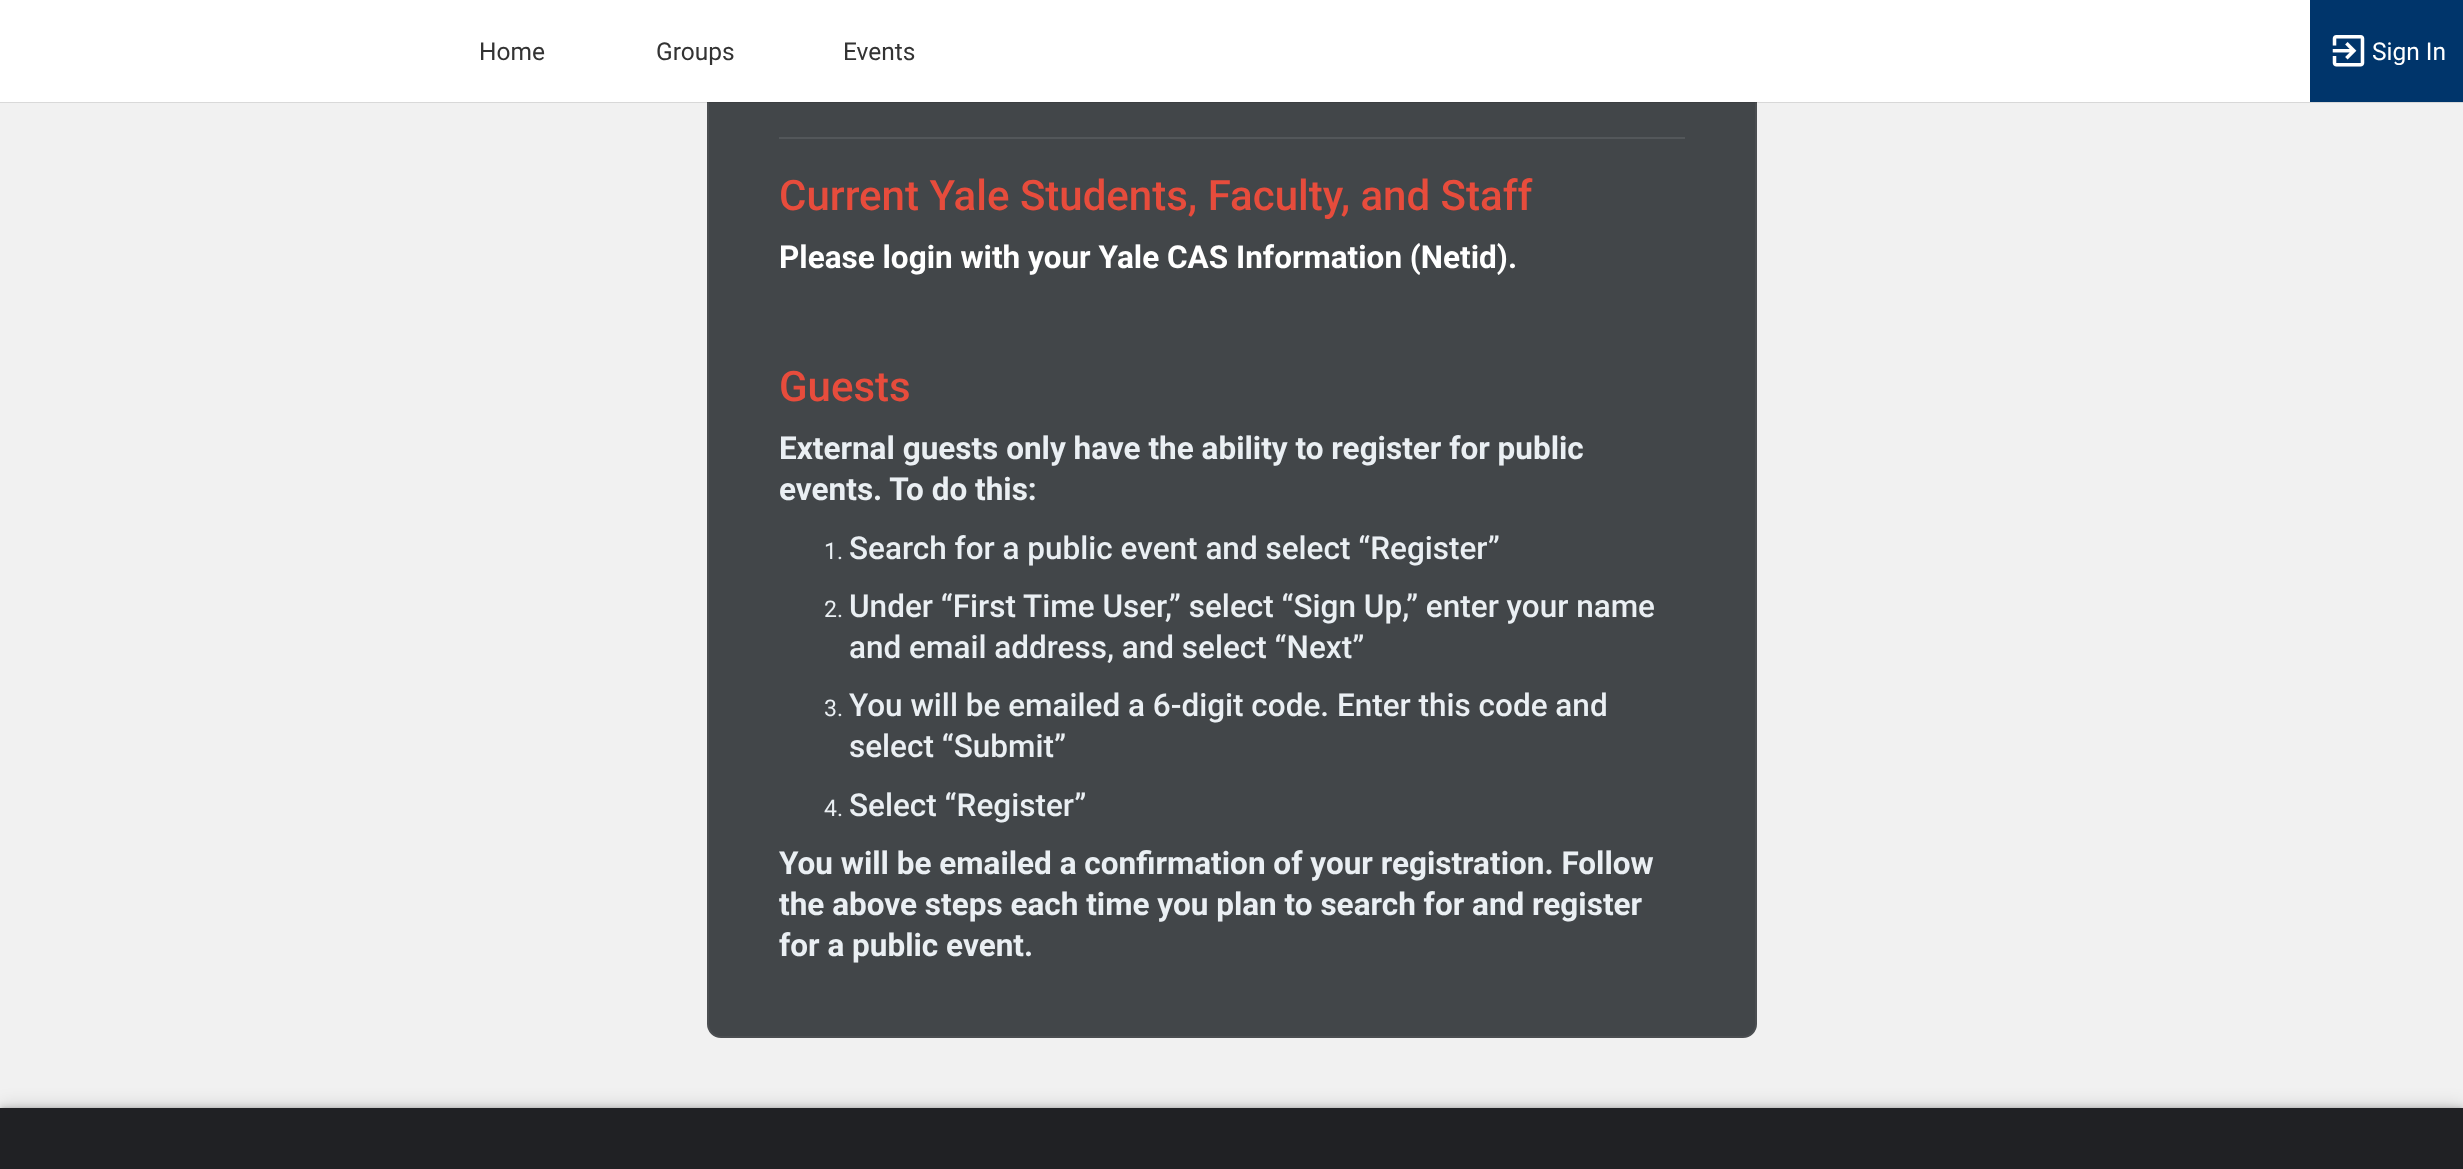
<!DOCTYPE html>
<meta charset="utf-8">
<style>body { margin: 0 } canvas { display: block }</style>
<canvas id="canvas" width="2463" height="1169"></canvas>
<img id="img1" src="img_01.png" hidden>
<script>
window.onload = function () {
	const canvas = document.getElementById("canvas");
	const ctx = canvas.getContext("2d");
	ctx.miterLimit = 4;
	ctx.fontKerning = "normal";
	function txt(s, x, y) {
		ctx.fillText(s, x, y);
	}
	function fill(x, y, w, h) {
		ctx.fillRect(x, y, w, h);
	}
	function img(id, x, y, w, h) {
		ctx.drawImage(document.getElementById(id), x, y, w, h);
	}

	ctx.fillStyle = "#F1F1F1";
	fill(0, 0, 2463, 1169);
	ctx.fillStyle = "#424649";
	ctx.beginPath();
	ctx.roundRect(708, 10, 1048, 1027, 13);
	ctx.fill();
	ctx.strokeStyle = "#4B4E51";
	ctx.lineWidth = 2;
	ctx.stroke();
	ctx.fillStyle = "#FFFFFF";
	fill(0, 0, 2310, 102);
	ctx.fillStyle = "rgba(0, 0, 0, 0.1)";
	fill(420, 102, 2043, 1);
	ctx.fillStyle = "#00356B";
	fill(2310, 0, 153, 102);
	img("img1", 2332, 35, 33, 32);
	ctx.fillStyle = "#D9D9D9";
	fill(0, 102, 420, 1);
	ctx.fillStyle = "#53575A";
	fill(779, 137, 906, 2);
	ctx.fillStyle = "rgba(0, 0, 0, 0.12)";
	ctx.filter = "blur(1px)";
	ctx.beginPath();
	ctx.rect(2, 1108, 2460, 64);
	ctx.fill();
	ctx.filter = "none";
	ctx.fillStyle = "rgba(0, 0, 0, 0.14)";
	ctx.filter = "blur(9px)";
	ctx.beginPath();
	ctx.rect(0, 1106, 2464, 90);
	ctx.fill();
	ctx.filter = "none";
	ctx.fillStyle = "rgba(0, 0, 0, 0.1)";
	ctx.filter = "blur(2.5px)";
	ctx.beginPath();
	ctx.rect(0, 1106, 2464, 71);
	ctx.fill();
	ctx.filter = "none";
	ctx.fillStyle = "#202124";
	fill(0, 1108, 2463, 61);
	ctx.font = "24.5px Roboto";
	ctx.fillStyle = "#333333";
	txt("Home", 479, 60);
	txt("Groups", 656, 60);
	txt("Events", 843, 60);
	ctx.fillStyle = "#FFFFFF";
	txt("Sign In", 2372, 60);
	ctx.font = "500 42px Roboto";
	ctx.fillStyle = "#E74C3C";
	txt("Current Yale Students, Faculty, and Staff", 779, 210);
	ctx.font = "bold 31.5px Roboto";
	ctx.fillStyle = "#FFFFFF";
	txt("Please login with your Yale CAS Information (Netid).", 779, 268);
	ctx.font = "500 42px Roboto";
	ctx.fillStyle = "#E74C3C";
	txt("Guests", 779, 401);
	ctx.font = "bold 31.5px Roboto";
	ctx.fillStyle = "#EAEFF3";
	txt("External guests only have the ability to register for public", 779, 459);
	txt("events. To do this:", 779, 500);
	ctx.font = "23px Roboto";
	txt("1.", 824, 559);
	ctx.font = "500 31.5px Roboto";
	txt("Search for a public event and select “Register”", 849, 559);
	ctx.font = "23px Roboto";
	txt("2.", 824, 617);
	ctx.font = "500 31.5px Roboto";
	txt("Under “First Time User,” select “Sign Up,” enter your name", 849, 617);
	txt("and email address, and select “Next”", 849, 658);
	ctx.font = "23px Roboto";
	txt("3.", 824, 716);
	ctx.font = "500 31.5px Roboto";
	txt("You will be emailed a 6-digit code. Enter this code and", 849, 716);
	txt("select “Submit”", 849, 757);
	ctx.font = "23px Roboto";
	txt("4.", 824, 816);
	ctx.font = "500 31.5px Roboto";
	txt("Select “Register”", 849, 816);
	ctx.font = "bold 31.5px Roboto";
	txt("You will be emailed a confirmation of your registration. Follow", 779, 874);
	txt("the above steps each time you plan to search for and register", 779, 915);
	txt("for a public event.", 779, 956);
};
</script>
